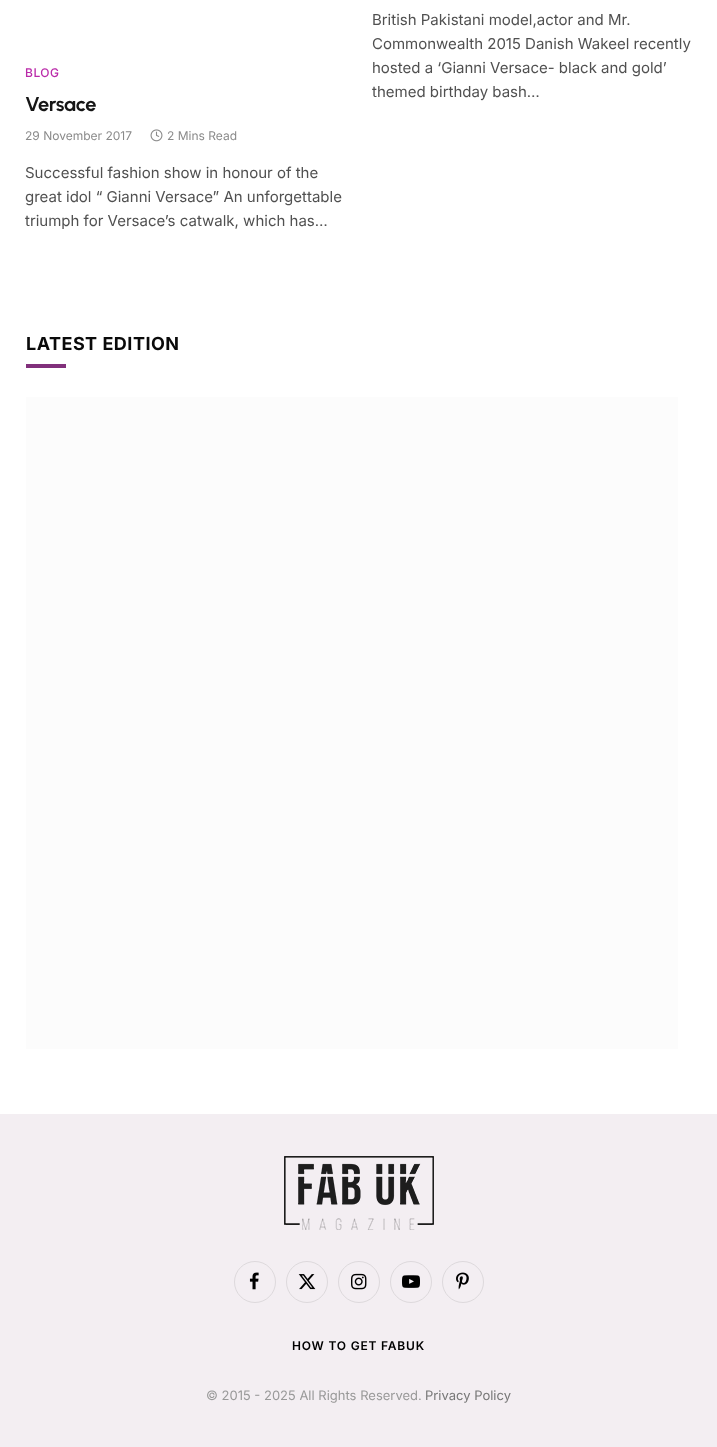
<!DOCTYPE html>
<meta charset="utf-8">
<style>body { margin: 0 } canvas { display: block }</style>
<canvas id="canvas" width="717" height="1447"></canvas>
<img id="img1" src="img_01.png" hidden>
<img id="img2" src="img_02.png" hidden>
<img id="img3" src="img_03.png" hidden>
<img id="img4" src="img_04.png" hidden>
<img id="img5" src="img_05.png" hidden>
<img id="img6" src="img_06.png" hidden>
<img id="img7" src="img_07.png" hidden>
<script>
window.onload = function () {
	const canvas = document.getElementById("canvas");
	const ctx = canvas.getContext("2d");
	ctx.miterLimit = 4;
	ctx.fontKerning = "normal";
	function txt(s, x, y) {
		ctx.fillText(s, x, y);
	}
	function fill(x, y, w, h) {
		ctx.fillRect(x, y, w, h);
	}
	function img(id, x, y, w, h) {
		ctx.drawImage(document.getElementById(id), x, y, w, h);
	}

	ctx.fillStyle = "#FFFFFF";
	fill(0, 0, 717, 1447);
	img("img1", 150, 129, 13, 13);
	ctx.fillStyle = "#81307B";
	fill(26, 364, 40, 4);
	ctx.fillStyle = "#FCFCFC";
	fill(26, 397, 652, 652);
	ctx.fillStyle = "#F3EEF2";
	fill(0, 1114, 717, 333);
	img("img2", 284, 1156, 150, 74);
	ctx.beginPath();
	ctx.arc(255, 1282, 20.5, 0, Math.PI * 2);
	ctx.strokeStyle = "#DDD9DC";
	ctx.stroke();
	img("img3", 249, 1272, 10, 18);
	ctx.beginPath();
	ctx.arc(307, 1282, 20.5, 0, Math.PI * 2);
	ctx.stroke();
	img("img4", 298, 1274, 18, 16);
	ctx.beginPath();
	ctx.arc(359, 1282, 20.5, 0, Math.PI * 2);
	ctx.stroke();
	img("img5", 351, 1273, 16, 17);
	ctx.beginPath();
	ctx.arc(411, 1282, 20.5, 0, Math.PI * 2);
	ctx.stroke();
	img("img6", 402, 1275, 18, 13);
	ctx.beginPath();
	ctx.arc(463, 1282, 20.5, 0, Math.PI * 2);
	ctx.stroke();
	img("img7", 456, 1272, 13, 18);
	ctx.font = "15px Inter";
	ctx.fillStyle = "#505050";
	txt("British Pakistani model,actor and Mr.", 372, 25);
	txt("Commonwealth 2015 Danish Wakeel recently", 372, 49);
	txt("hosted a ‘Gianni Versace- black and gold’", 372, 73);
	txt("themed birthday bash…", 372, 97);
	ctx.letterSpacing = "0.5px";
	ctx.font = "500 12px Inter";
	ctx.fillStyle = "#BA2AA9";
	txt("BLOG", 25, 77);
	ctx.letterSpacing = "-0.25px";
	ctx.font = "bold 20px Urbanist";
	ctx.fillStyle = "#161616";
	txt("Versace", 25, 111);
	ctx.letterSpacing = "0px";
	ctx.font = "12px Inter";
	ctx.fillStyle = "#8A8A8A";
	txt("29 November 2017", 25, 140);
	txt("2 Mins Read", 167, 140);
	ctx.font = "15px Inter";
	ctx.fillStyle = "#505050";
	txt("Successful fashion show in honour of the", 25, 178);
	txt("great idol “ Gianni Versace” An unforgettable", 25, 202);
	txt("triumph for Versace’s catwalk, which has…", 25, 226);
	ctx.letterSpacing = "0.5px";
	ctx.font = "bold 18px Inter";
	ctx.fillStyle = "#0A0A0A";
	txt("LATEST EDITION", 26, 350);
	ctx.letterSpacing = "0.8px";
	ctx.font = "600 12px Inter";
	ctx.fillStyle = "#000000";
	txt("HOW TO GET FABUK", 292, 1350);
	ctx.letterSpacing = "0px";
	ctx.font = "13px Inter";
	ctx.fillStyle = "#999999";
	txt("© 2015 - 2025 All Rights Reserved.", 206, 1400);
	ctx.fillStyle = "#777777";
	txt("Privacy Policy", 425, 1400);
};
</script>
